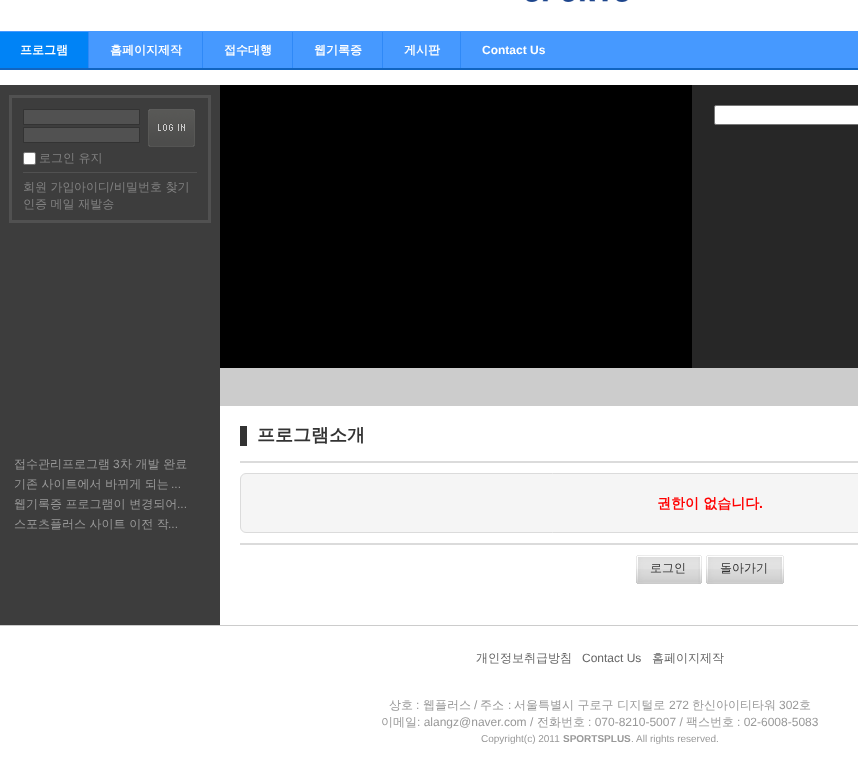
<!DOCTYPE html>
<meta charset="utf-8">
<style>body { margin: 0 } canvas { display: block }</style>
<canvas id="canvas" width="858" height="775"></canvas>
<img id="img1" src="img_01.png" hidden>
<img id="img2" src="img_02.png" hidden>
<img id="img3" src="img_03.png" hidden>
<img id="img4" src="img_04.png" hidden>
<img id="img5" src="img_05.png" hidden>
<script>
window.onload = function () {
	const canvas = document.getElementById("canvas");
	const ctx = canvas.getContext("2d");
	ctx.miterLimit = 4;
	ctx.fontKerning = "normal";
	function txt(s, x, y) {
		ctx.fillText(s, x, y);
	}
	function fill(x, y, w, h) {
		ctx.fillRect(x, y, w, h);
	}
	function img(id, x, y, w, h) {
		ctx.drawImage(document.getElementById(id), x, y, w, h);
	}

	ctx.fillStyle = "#FFFFFF";
	fill(0, 0, 858, 775);
	img("img1", 526, 0, 102, 2);
	ctx.fillStyle = "#4699FF";
	fill(0, 31, 858, 37);
	ctx.fillStyle = "#2F89F7";
	fill(88, 32, 1, 36);
	ctx.fillStyle = "#0083F6";
	fill(0, 32, 88, 36);
	ctx.fillStyle = "#2F89F7";
	fill(202, 32, 1, 36);
	fill(292, 32, 1, 36);
	fill(382, 32, 1, 36);
	fill(460, 32, 1, 36);
	ctx.fillStyle = "#1165C1";
	fill(0, 68, 858, 2);
	ctx.fillStyle = "#3D3D3D";
	fill(0, 85, 220, 540);
	ctx.strokeStyle = "#515151";
	ctx.lineWidth = 2;
	ctx.strokeRect(10, 96, 200, 126);
	ctx.lineWidth = 1;
	ctx.strokeRect(11.5, 97.5, 197, 123);
	img("img2", 148, 109, 47, 38);
	ctx.fillStyle = "#515151";
	ctx.beginPath();
	ctx.rect(23.5, 109.5, 116, 15);
	ctx.fill();
	ctx.strokeStyle = "#333333";
	ctx.stroke();
	ctx.beginPath();
	ctx.rect(23.5, 127.5, 116, 15);
	ctx.fill();
	ctx.stroke();
	ctx.fillStyle = "#FFFFFF";
	ctx.beginPath();
	ctx.roundRect(23.5, 152.5, 12, 12, 1.5);
	ctx.fill();
	ctx.strokeStyle = "#767676";
	ctx.stroke();
	ctx.fillStyle = "#515151";
	fill(23, 172, 174, 1);
	ctx.fillStyle = "#000000";
	fill(220, 85, 472, 283);
	ctx.fillStyle = "#272727";
	fill(692, 85, 166, 283);
	ctx.fillStyle = "#FFFFFF";
	ctx.beginPath();
	ctx.roundRect(714.5, 105.5, 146, 19, 1.5);
	ctx.fill();
	ctx.stroke();
	ctx.fillStyle = "#CCCCCC";
	fill(220, 368, 638, 38);
	ctx.fillStyle = "#333333";
	fill(240, 426, 7, 20);
	ctx.fillStyle = "#DBDBDB";
	fill(240, 461, 618, 2);
	ctx.fillStyle = "#F5F5F5";
	ctx.beginPath();
	ctx.roundRect(240.5, 473.5, 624, 59, 5.5);
	ctx.fill();
	ctx.strokeStyle = "#DBDBDB";
	ctx.stroke();
	ctx.fillStyle = "#DBDBDB";
	fill(240, 543, 618, 2);
	img("img3", 636, 555, 62, 29);
	img("img4", 698, 555, 4, 29);
	img("img5", 706, 555, 74, 29);
	img("img4", 780, 555, 4, 29);
	ctx.fillStyle = "#CCCCCC";
	fill(0, 625, 858, 1);
	ctx.font = "bold 12px WenQuanYi Zen Hei";
	ctx.fillStyle = "#FFFFFF";
	txt("프로그램", 20, 54);
	txt("홈페이지제작", 110, 54);
	txt("접수대행", 224, 54);
	txt("웹기록증", 314, 54);
	txt("게시판", 404, 54);
	ctx.font = "bold 12px Liberation Sans";
	txt("Contact Us", 482, 54);
	ctx.font = "500 12px WenQuanYi Zen Hei";
	ctx.fillStyle = "#818181";
	txt("로그인 유지", 39, 162);
	txt("회원 가입", 23, 191);
	txt("아이디", 74, 191);
	ctx.font = "12px Liberation Sans";
	txt("/", 110, 191);
	ctx.font = "500 12px WenQuanYi Zen Hei";
	txt("비밀번호 찾기", 114, 191);
	txt("인증 메일 재발송", 23, 208);
	ctx.fillStyle = "#999999";
	txt("접수관리프로그램", 14, 468);
	ctx.font = "12px Liberation Sans";
	txt("3", 113, 468);
	ctx.font = "500 12px WenQuanYi Zen Hei";
	txt("차 개발 완료", 120, 468);
	txt("기존 사이트에서 바뀌게 되는", 14, 488);
	ctx.font = "12px Liberation Sans";
	txt("...", 171, 488);
	ctx.font = "500 12px WenQuanYi Zen Hei";
	txt("웹기록증 프로그램이 변경되어", 14, 508);
	ctx.font = "12px Liberation Sans";
	txt("...", 177, 508);
	ctx.font = "500 12px WenQuanYi Zen Hei";
	txt("스포츠플러스 사이트 이전 작", 14, 528);
	ctx.font = "12px Liberation Sans";
	txt("...", 168, 528);
	ctx.font = "bold 18px WenQuanYi Zen Hei";
	ctx.fillStyle = "#333333";
	txt("프로그램소개", 257, 441);
	ctx.font = "bold 14px WenQuanYi Zen Hei";
	ctx.fillStyle = "#FF0000";
	txt("권한이 없습니다", 657, 508);
	ctx.font = "bold 14px Liberation Sans";
	txt(".", 759, 508);
	ctx.font = "500 12px WenQuanYi Zen Hei";
	ctx.fillStyle = "#333333";
	txt("로그인", 650, 572);
	txt("돌아가기", 720, 572);
	ctx.fillStyle = "#666666";
	txt("개인정보취급방침", 476, 662);
	ctx.font = "12px Liberation Sans";
	txt("Contact Us", 582, 662);
	ctx.font = "500 12px WenQuanYi Zen Hei";
	txt("홈페이지제작", 652, 662);
	ctx.fillStyle = "#999999";
	txt("상호", 389, 709);
	ctx.font = "12px Liberation Sans";
	txt(":", 416, 709);
	ctx.font = "500 12px WenQuanYi Zen Hei";
	txt("웹플러스", 423, 709);
	ctx.font = "12px Liberation Sans";
	txt("/", 474, 709);
	ctx.font = "500 12px WenQuanYi Zen Hei";
	txt("주소", 480, 709);
	ctx.font = "12px Liberation Sans";
	txt(":", 508, 709);
	ctx.font = "500 12px WenQuanYi Zen Hei";
	txt("서울특별시 구로구 디지털로", 514, 709);
	ctx.font = "12px Liberation Sans";
	txt("272", 669, 709);
	ctx.font = "500 12px WenQuanYi Zen Hei";
	txt("한신아이티타워", 692, 709);
	ctx.font = "12px Liberation Sans";
	txt("302", 779, 709);
	ctx.font = "500 12px WenQuanYi Zen Hei";
	txt("호", 799, 709);
	txt("이메일", 381, 726);
	ctx.font = "12px Liberation Sans";
	txt(": alangz@naver.com /", 417, 726);
	ctx.font = "500 12px WenQuanYi Zen Hei";
	txt("전화번호", 537, 726);
	ctx.font = "12px Liberation Sans";
	txt(": 070-8210-5007 /", 588, 726);
	ctx.font = "500 12px WenQuanYi Zen Hei";
	txt("팩스번호", 686, 726);
	ctx.font = "12px Liberation Sans";
	txt(": 02-6008-5083", 737, 726);
	ctx.font = "10px Liberation Sans";
	txt("Copyright(c) 2011", 481, 742);
	ctx.font = "bold 10px Liberation Sans";
	txt("SPORTSPLUS", 563, 742);
	ctx.font = "10px Liberation Sans";
	txt(". All rights reserved.", 631, 742);
};
</script>
